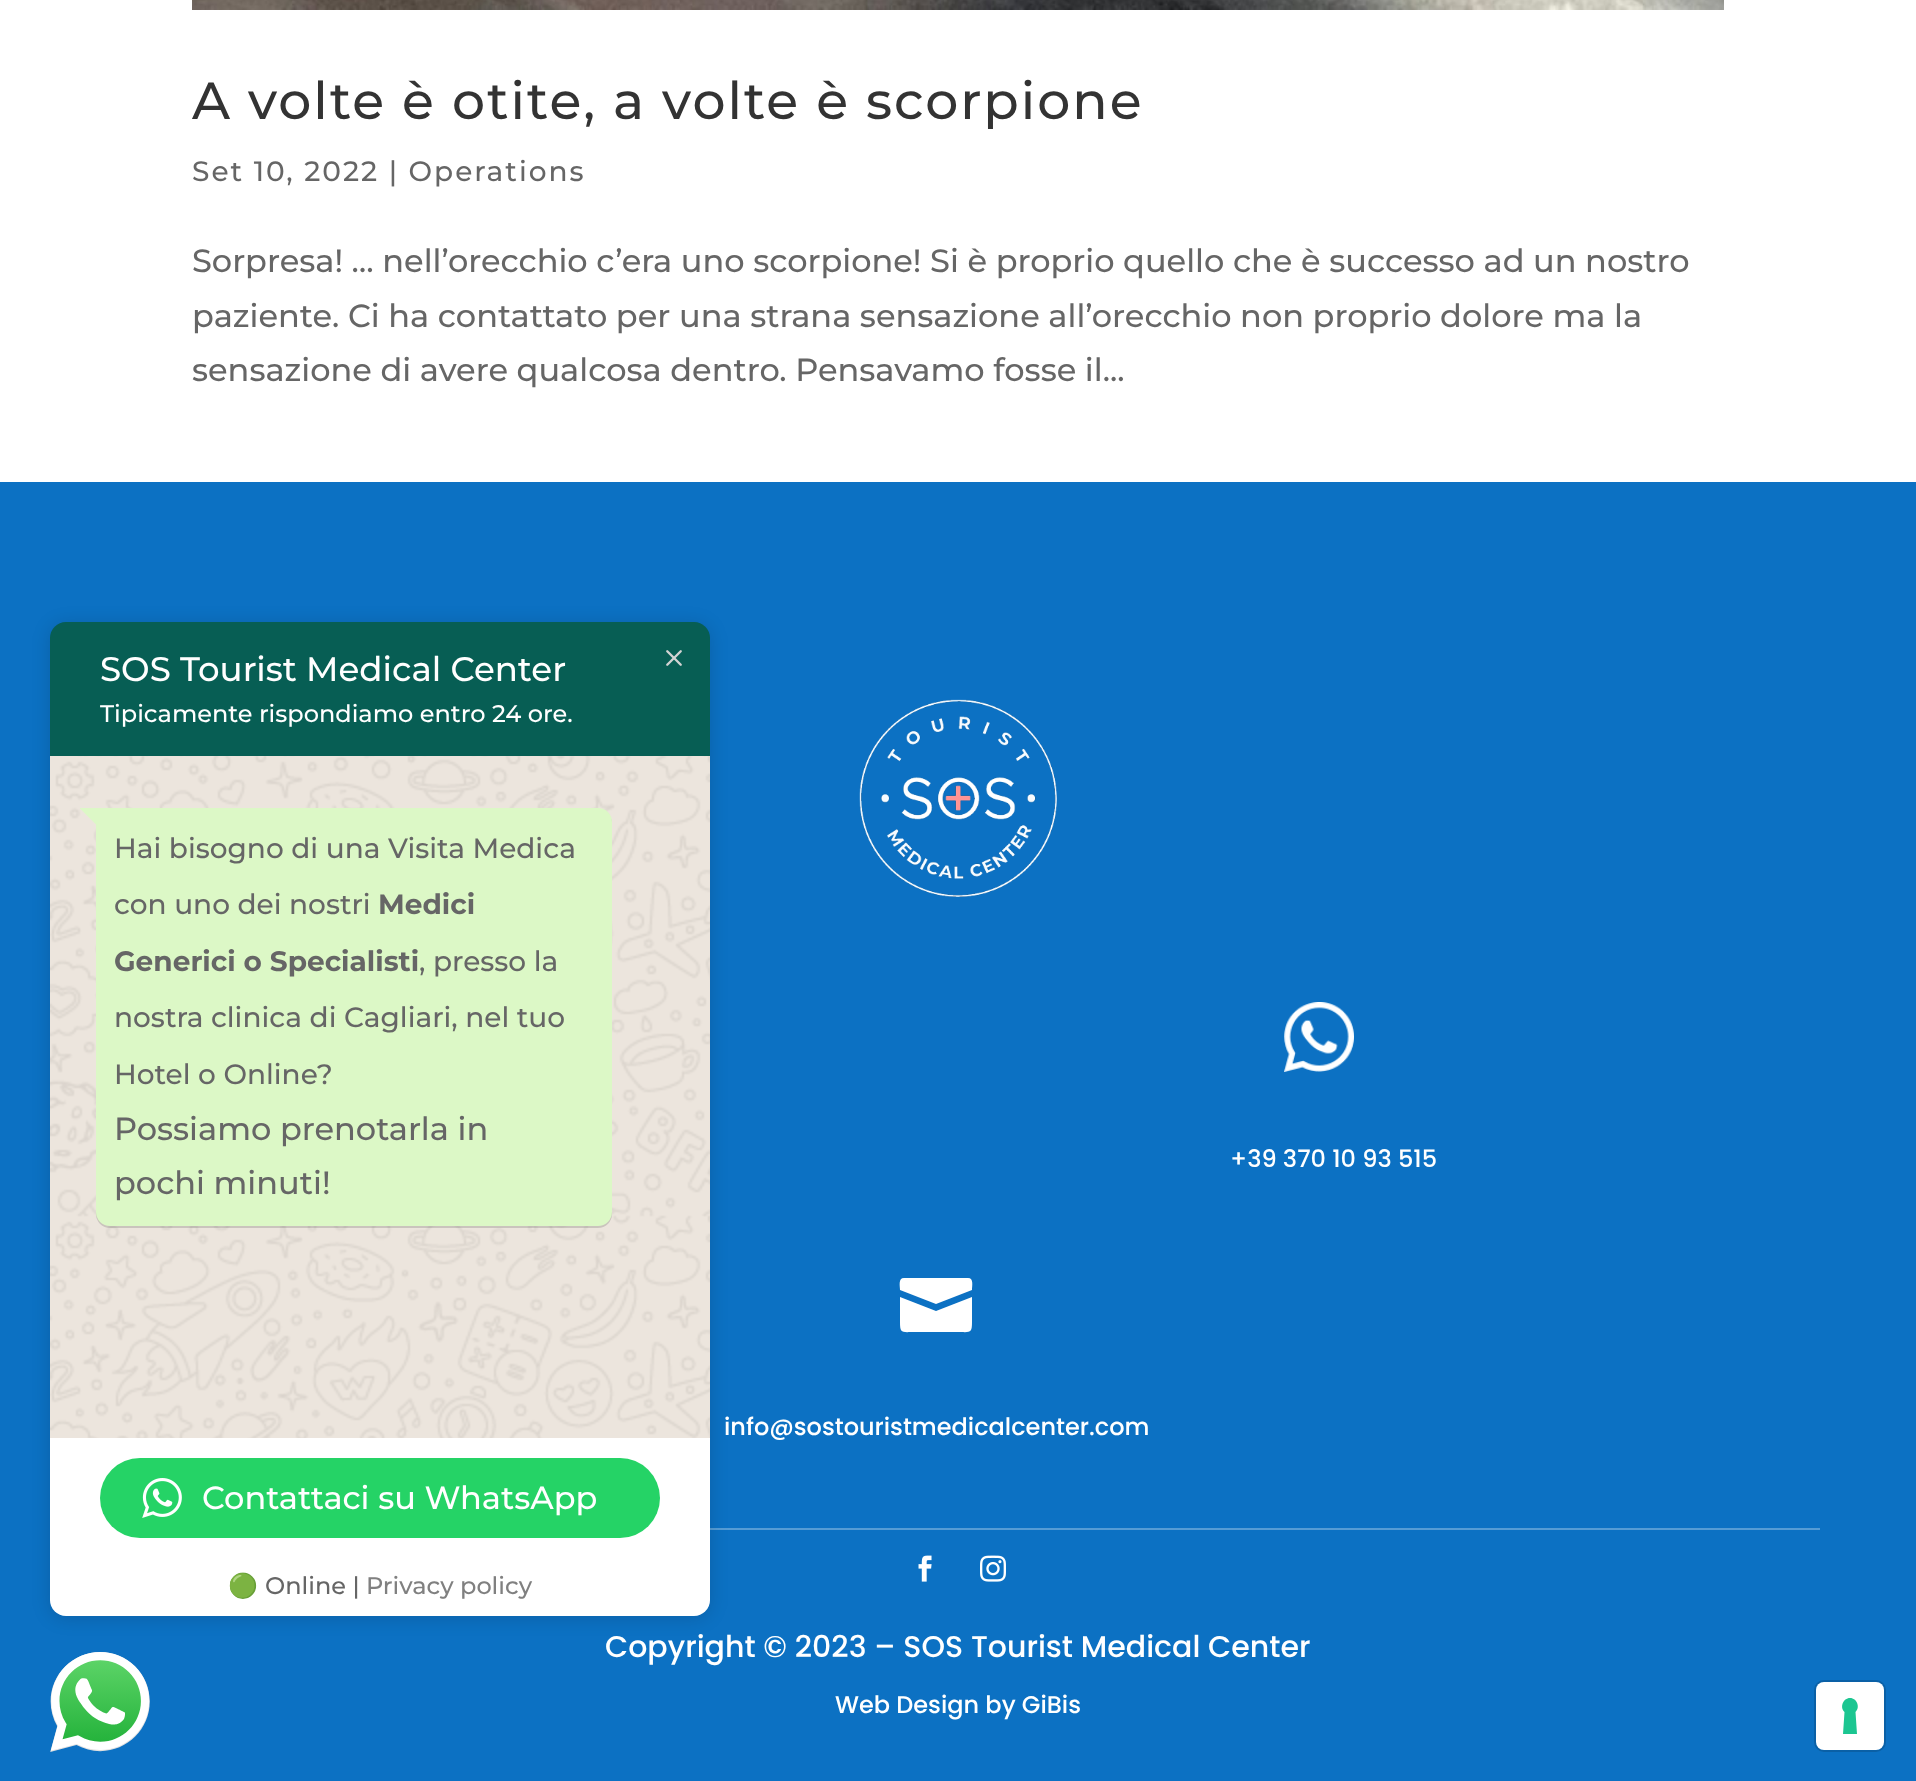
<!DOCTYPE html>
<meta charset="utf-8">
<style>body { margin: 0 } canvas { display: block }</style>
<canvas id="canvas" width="1916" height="1781"></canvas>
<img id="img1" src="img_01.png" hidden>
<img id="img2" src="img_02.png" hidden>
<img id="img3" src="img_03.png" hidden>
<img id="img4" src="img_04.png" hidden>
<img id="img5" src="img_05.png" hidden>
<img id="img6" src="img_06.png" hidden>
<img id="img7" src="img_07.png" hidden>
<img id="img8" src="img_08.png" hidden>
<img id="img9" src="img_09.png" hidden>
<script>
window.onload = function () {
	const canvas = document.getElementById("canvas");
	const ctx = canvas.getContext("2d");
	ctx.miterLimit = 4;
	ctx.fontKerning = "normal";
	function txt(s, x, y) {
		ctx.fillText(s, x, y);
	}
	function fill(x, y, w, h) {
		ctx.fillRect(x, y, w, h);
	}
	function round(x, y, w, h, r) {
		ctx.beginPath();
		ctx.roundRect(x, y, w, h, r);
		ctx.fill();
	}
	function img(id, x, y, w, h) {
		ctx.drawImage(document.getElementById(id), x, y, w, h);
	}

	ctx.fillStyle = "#FFFFFF";
	fill(0, 0, 1916, 1781);
	img("img1", 192, 0, 1532, 10);
	ctx.fillStyle = "#0C71C3";
	fill(0, 482, 1916, 1299);
	img("img2", 859, 699, 198, 198);
	img("img3", 1284, 1002, 70, 70);
	ctx.fillStyle = "#FFFFFF";
	ctx.beginPath();
	ctx.moveTo(968, 1278);
	ctx.lineTo(904, 1278);
	ctx.bezierCurveTo(898, 1278, 900, 1286, 900, 1290);
	ctx.lineTo(936, 1304);
	ctx.lineTo(972, 1290);
	ctx.bezierCurveTo(972, 1286, 974, 1278, 968, 1278);
	ctx.closePath();
	ctx.moveTo(900, 1297);
	ctx.lineTo(900, 1322);
	ctx.bezierCurveTo(900, 1334, 902, 1332, 915, 1332);
	ctx.lineTo(957, 1332);
	ctx.bezierCurveTo(970, 1332, 972, 1334, 972, 1322);
	ctx.lineTo(972, 1297);
	ctx.lineTo(936, 1311);
	ctx.closePath();
	ctx.fill();
	ctx.fillStyle = "#559CD5";
	fill(710, 1528, 1110, 2);
	img("img4", 918, 1555, 14, 27);
	img("img5", 980, 1555, 26, 27);
	ctx.fillStyle = "rgba(0, 0, 0, 0.14)";
	ctx.filter = "blur(9px)";
	ctx.beginPath();
	ctx.roundRect(50, 624, 660, 994, 16);
	ctx.fill();
	ctx.filter = "none";
	ctx.fillStyle = "#075E54";
	ctx.beginPath();
	ctx.roundRect(50, 622, 660, 136, [16, 16, 0, 0]);
	ctx.fill();
	ctx.fillStyle = "#ECE5DD";
	fill(50, 756, 660, 682);
	img("img6", 50, 756, 660, 682);
	ctx.fillStyle = "rgba(0, 0, 0, 0.14)";
	ctx.filter = "blur(0.5px)";
	ctx.beginPath();
	ctx.roundRect(96, 810, 516, 418, 14);
	ctx.fill();
	ctx.filter = "none";
	ctx.fillStyle = "#DCF8C6";
	ctx.beginPath();
	ctx.roundRect(96, 808, 516, 418, [0, 14, 14, 14]);
	ctx.fill();
	ctx.beginPath();
	ctx.moveTo(80, 808);
	ctx.lineTo(97.5, 808);
	ctx.lineTo(97.5, 826);
	ctx.lineTo(80, 808.5);
	ctx.closePath();
	ctx.fill();
	ctx.fillStyle = "#FFFFFF";
	fill(50, 1438, 660, 116);
	ctx.fillStyle = "#25D366";
	round(100, 1458, 560, 80, 40);
	img("img7", 142, 1478, 40, 40);
	ctx.fillStyle = "#FFFFFF";
	ctx.beginPath();
	ctx.roundRect(50, 1554, 660, 62, [0, 0, 16, 16]);
	ctx.fill();
	img("img8", 666, 650, 16, 16);
	img("img9", 50, 1652, 100, 100);
	ctx.beginPath();
	ctx.roundRect(1815, 1681, 70, 70, 9);
	ctx.strokeStyle = "#0A60A6";
	ctx.lineWidth = 2;
	ctx.stroke();
	round(1816, 1682, 68, 68, 8);
	ctx.fillStyle = "#1CC691";
	ctx.beginPath();
	ctx.moveTo(1850, 1698);
	ctx.bezierCurveTo(1857, 1698, 1860.5, 1707.5, 1855.5, 1712);
	ctx.lineTo(1857, 1734);
	ctx.lineTo(1843, 1734);
	ctx.lineTo(1844.5, 1712);
	ctx.bezierCurveTo(1839.5, 1707.5, 1843, 1698, 1850, 1698);
	ctx.closePath();
	ctx.fill("evenodd");
	ctx.letterSpacing = "2px";
	ctx.font = "100 52px Montserrat";
	ctx.fillStyle = "#333333";
	txt("A volte è otite, a volte è scorpione", 192, 119);
	ctx.font = "100 28px Montserrat";
	ctx.fillStyle = "#666666";
	txt("Set 10, 2022 | Operations", 192, 181);
	ctx.letterSpacing = "0px";
	ctx.font = "100 32px Montserrat";
	txt("Sorpresa! … nell’orecchio c’era uno scorpione! Si è proprio quello che è successo ad un nostro", 192, 272);
	txt("paziente. Ci ha contattato per una strana sensazione all’orecchio non proprio dolore ma la", 192, 327);
	txt("sensazione di avere qualcosa dentro. Pensavamo fosse il...", 192, 381);
	ctx.font = "500 24px Poppins";
	ctx.fillStyle = "#FFFFFF";
	txt("+39 370 10 93 515", 1230, 1167);
	txt("info@sostouristmedicalcenter.com", 724, 1435);
	ctx.font = "500 30px Poppins";
	txt("Copyright © 2023 – SOS Tourist Medical Center", 605, 1657);
	ctx.font = "500 24px Poppins";
	txt("Web Design by GiBis", 835, 1713);
	ctx.font = "100 34px Montserrat";
	txt("SOS Tourist Medical Center", 100, 681);
	ctx.font = "100 24px Montserrat";
	txt("Tipicamente rispondiamo entro 24 ore.", 100, 722);
	ctx.font = "100 28px Montserrat";
	ctx.fillStyle = "#666666";
	txt("Hai bisogno di una Visita Medica", 114, 858);
	txt("con uno dei nostri", 114, 914);
	ctx.font = "100 28px 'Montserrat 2'";
	txt("Medici", 378, 914);
	txt("Generici o Specialisti", 114, 971);
	ctx.font = "100 28px Montserrat";
	txt(", presso la", 419, 971);
	txt("nostra clinica di Cagliari, nel tuo", 114, 1027);
	txt("Hotel o Online?", 114, 1084);
	ctx.font = "100 32px Montserrat";
	txt("Possiamo prenotarla in", 114, 1140);
	txt("pochi minuti!", 114, 1194);
	ctx.fillStyle = "#FFFFFF";
	txt("Contattaci su WhatsApp", 202, 1509);
	ctx.font = "24px Noto Color Emoji";
	ctx.fillStyle = "#666666";
	txt("🟢", 228, 1594);
	ctx.font = "100 24px Montserrat";
	txt("Online |", 265, 1594);
	ctx.fillStyle = "#808080";
	txt("Privacy policy", 366, 1594);
};
</script>
